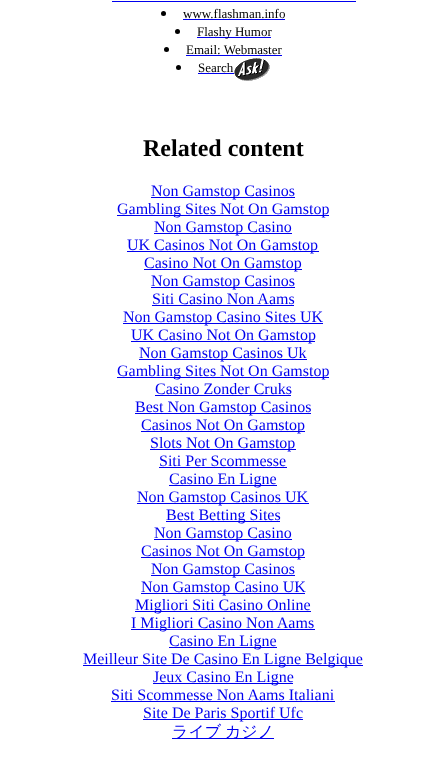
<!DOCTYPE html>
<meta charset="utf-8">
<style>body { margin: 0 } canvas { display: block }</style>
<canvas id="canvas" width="446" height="759"></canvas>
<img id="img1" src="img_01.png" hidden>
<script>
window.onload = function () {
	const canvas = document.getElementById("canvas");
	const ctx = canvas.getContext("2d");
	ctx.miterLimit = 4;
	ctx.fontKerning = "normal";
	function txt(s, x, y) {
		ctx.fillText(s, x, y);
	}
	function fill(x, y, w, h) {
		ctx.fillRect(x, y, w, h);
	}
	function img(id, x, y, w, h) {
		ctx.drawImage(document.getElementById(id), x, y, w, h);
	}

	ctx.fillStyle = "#FFFFFF";
	fill(0, 0, 446, 759);
	ctx.fillStyle = "#0000EE";
	fill(112, 1, 244, 1);
	ctx.fillStyle = "#000000";
	ctx.beginPath();
	ctx.arc(163.5, 13.5, 2.5, 0, Math.PI * 2);
	ctx.fill();
	ctx.fillStyle = "#0000EE";
	fill(183, 19, 102, 1);
	ctx.fillStyle = "#000000";
	ctx.beginPath();
	ctx.arc(177.5, 31.5, 2.5, 0, Math.PI * 2);
	ctx.fill();
	ctx.fillStyle = "#0000EE";
	fill(197, 37, 74, 1);
	ctx.fillStyle = "#000000";
	ctx.beginPath();
	ctx.arc(166.5, 49.5, 2.5, 0, Math.PI * 2);
	ctx.fill();
	ctx.fillStyle = "#0000EE";
	fill(186, 55, 96, 1);
	ctx.fillStyle = "#000000";
	ctx.beginPath();
	ctx.arc(178.5, 67.5, 2.5, 0, Math.PI * 2);
	ctx.fill();
	ctx.fillStyle = "#0000EE";
	fill(198, 73, 36, 1);
	img("img1", 234, 58, 36, 23);
	fill(151, 197, 144, 1);
	fill(117, 215, 212, 1);
	fill(154, 233, 138, 1);
	fill(127, 251, 192, 1);
	fill(144, 269, 158, 1);
	fill(151, 287, 144, 1);
	fill(152, 305, 142, 1);
	fill(123, 323, 200, 1);
	fill(131, 341, 184, 1);
	fill(139, 359, 168, 1);
	fill(117, 377, 212, 1);
	fill(155, 395, 136, 1);
	fill(135, 413, 176, 1);
	fill(141, 431, 164, 1);
	fill(150, 449, 146, 1);
	fill(159, 467, 128, 1);
	fill(169, 485, 108, 1);
	fill(137, 503, 172, 1);
	fill(166, 521, 114, 1);
	fill(154, 539, 138, 1);
	fill(141, 557, 164, 1);
	fill(151, 575, 144, 1);
	fill(141, 593, 164, 1);
	fill(135, 611, 176, 1);
	fill(131, 629, 184, 1);
	fill(169, 647, 108, 1);
	fill(83, 665, 280, 1);
	fill(153, 683, 140, 1);
	fill(111, 701, 224, 1);
	fill(143, 719, 160, 1);
	fill(172, 738, 102, 1);
	ctx.font = "13px Liberation Serif";
	ctx.fillStyle = "#000000";
	txt("www.flashman.info", 183, 18);
	txt("Flashy Humor", 197, 36);
	txt("Email: Webmaster", 186, 54);
	txt("Search", 198, 72);
	ctx.font = "bold 24px Liberation Serif";
	txt("Related content", 143, 156);
	ctx.font = "16px Liberation Serif";
	ctx.fillStyle = "#0000EE";
	txt("Non Gamstop Casinos", 151, 196);
	txt("Gambling Sites Not On Gamstop", 117, 214);
	txt("Non Gamstop Casino", 154, 232);
	txt("UK Casinos Not On Gamstop", 127, 250);
	txt("Casino Not On Gamstop", 144, 268);
	txt("Non Gamstop Casinos", 151, 286);
	txt("Siti Casino Non Aams", 152, 304);
	txt("Non Gamstop Casino Sites UK", 123, 322);
	txt("UK Casino Not On Gamstop", 131, 340);
	txt("Non Gamstop Casinos Uk", 139, 358);
	txt("Gambling Sites Not On Gamstop", 117, 376);
	txt("Casino Zonder Cruks", 155, 394);
	txt("Best Non Gamstop Casinos", 135, 412);
	txt("Casinos Not On Gamstop", 141, 430);
	txt("Slots Not On Gamstop", 150, 448);
	txt("Siti Per Scommesse", 159, 466);
	txt("Casino En Ligne", 169, 484);
	txt("Non Gamstop Casinos UK", 137, 502);
	txt("Best Betting Sites", 166, 520);
	txt("Non Gamstop Casino", 154, 538);
	txt("Casinos Not On Gamstop", 141, 556);
	txt("Non Gamstop Casinos", 151, 574);
	txt("Non Gamstop Casino UK", 141, 592);
	txt("Migliori Siti Casino Online", 135, 610);
	txt("I Migliori Casino Non Aams", 131, 628);
	txt("Casino En Ligne", 169, 646);
	txt("Meilleur Site De Casino En Ligne Belgique", 83, 664);
	txt("Jeux Casino En Ligne", 153, 682);
	txt("Siti Scommesse Non Aams Italiani", 111, 700);
	txt("Site De Paris Sportif Ufc", 143, 718);
	ctx.wordSpacing = "-1px";
	ctx.font = "500 16px WenQuanYi Zen Hei";
	txt("ライブ カジノ", 172, 737);
};
</script>
